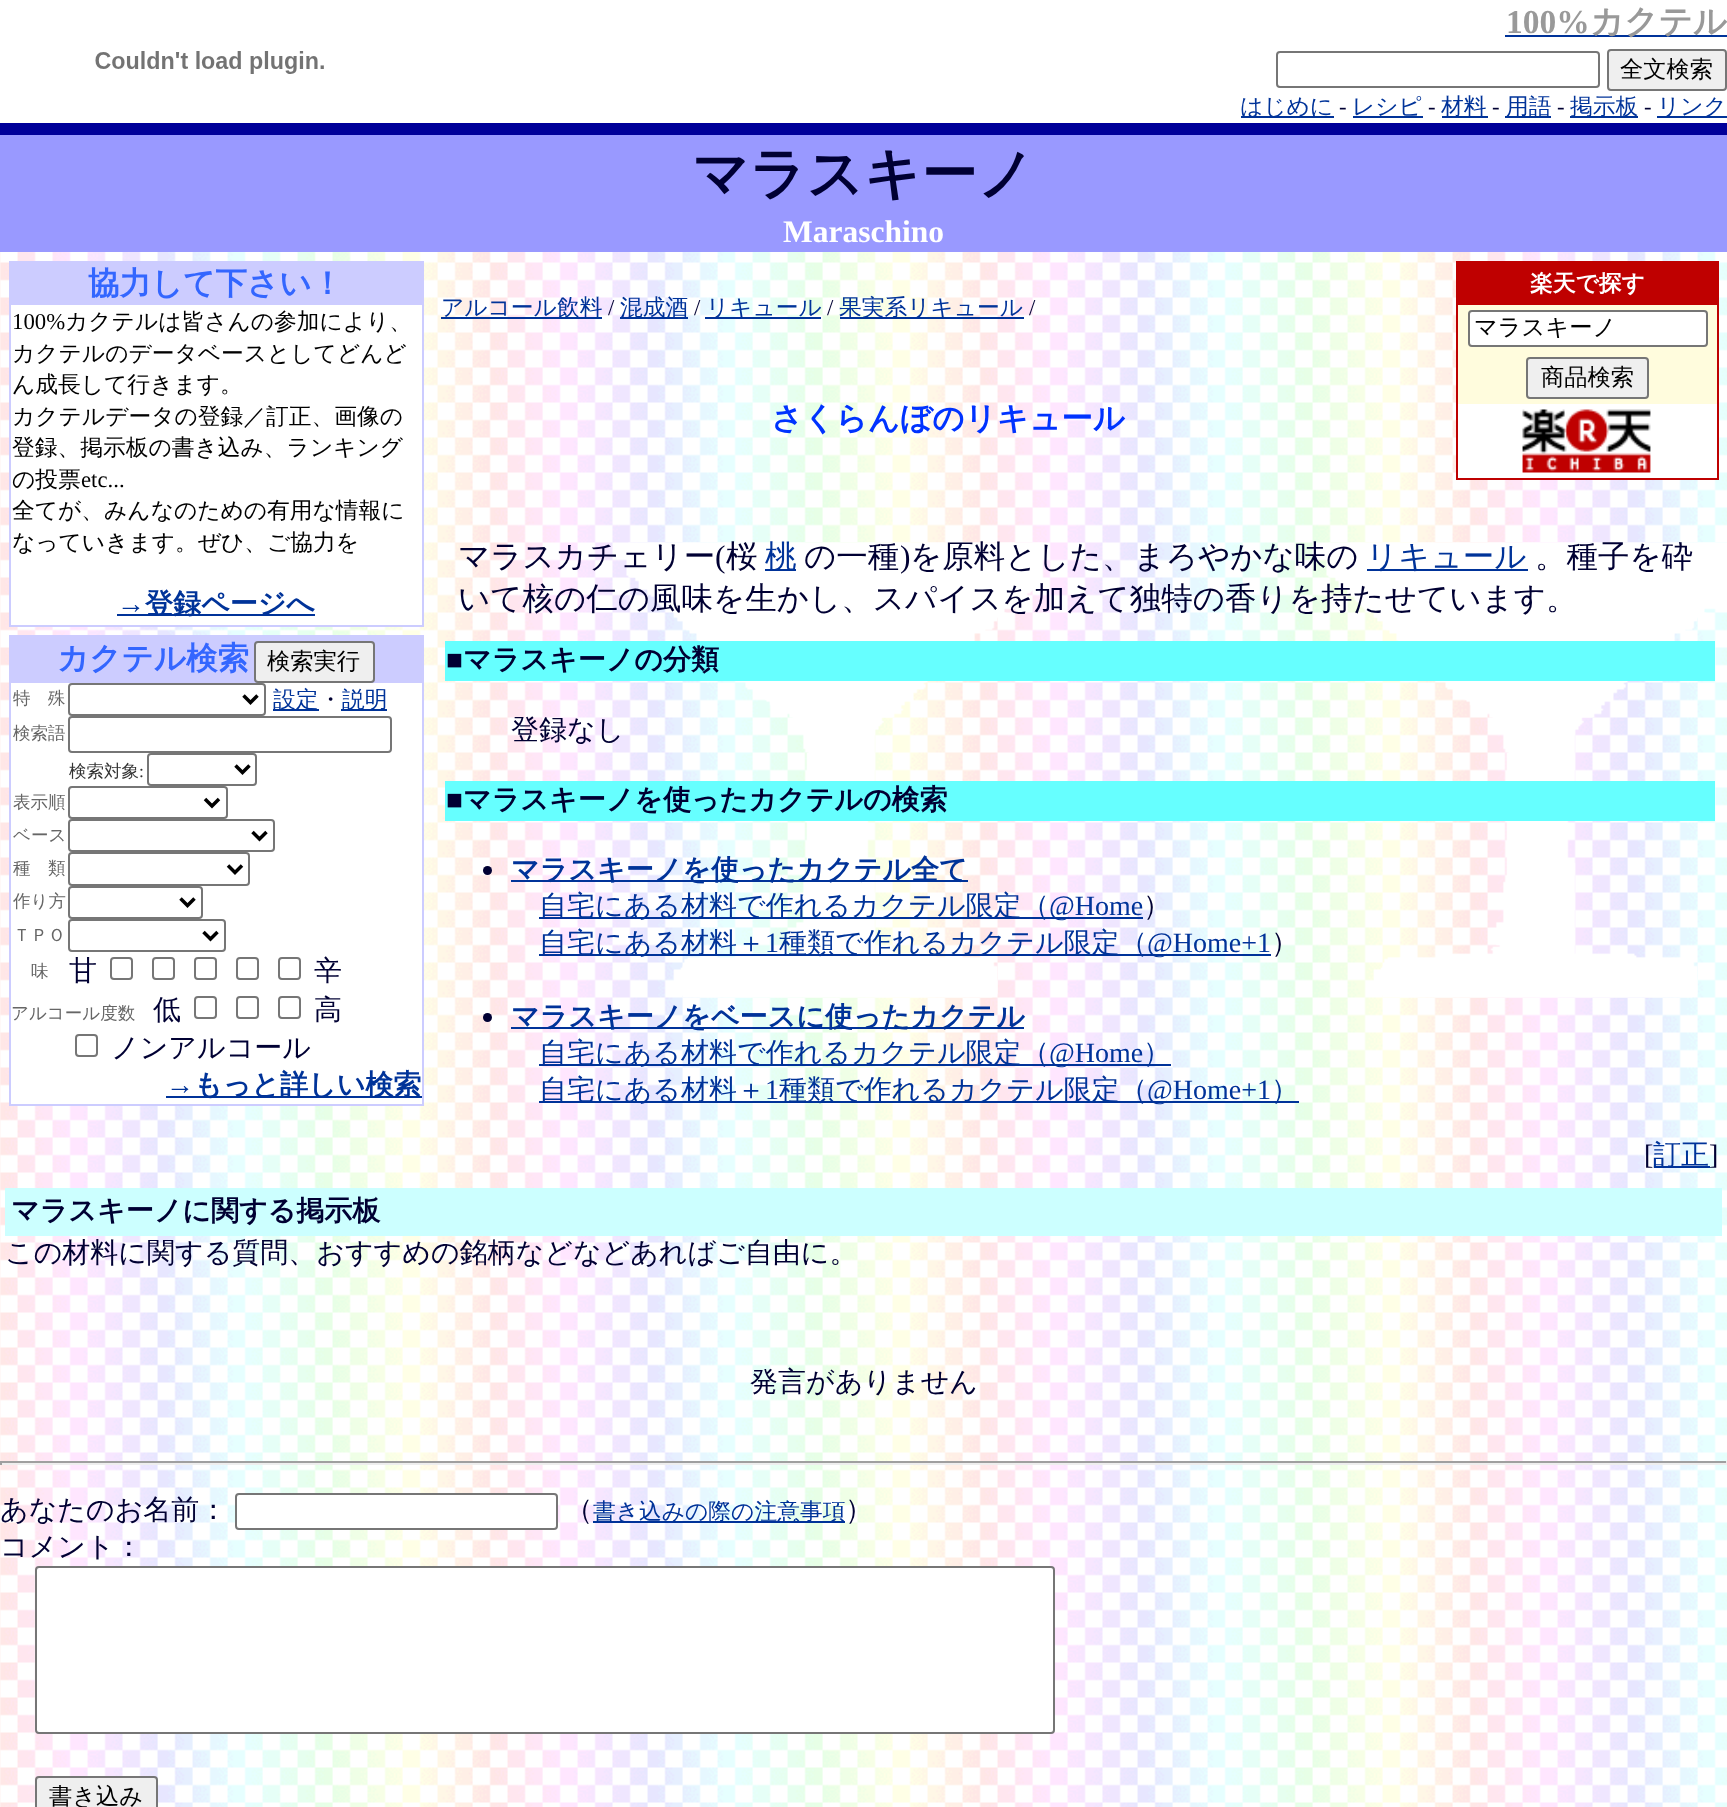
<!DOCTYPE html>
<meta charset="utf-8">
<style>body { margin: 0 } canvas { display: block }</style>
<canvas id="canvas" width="1727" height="1807"></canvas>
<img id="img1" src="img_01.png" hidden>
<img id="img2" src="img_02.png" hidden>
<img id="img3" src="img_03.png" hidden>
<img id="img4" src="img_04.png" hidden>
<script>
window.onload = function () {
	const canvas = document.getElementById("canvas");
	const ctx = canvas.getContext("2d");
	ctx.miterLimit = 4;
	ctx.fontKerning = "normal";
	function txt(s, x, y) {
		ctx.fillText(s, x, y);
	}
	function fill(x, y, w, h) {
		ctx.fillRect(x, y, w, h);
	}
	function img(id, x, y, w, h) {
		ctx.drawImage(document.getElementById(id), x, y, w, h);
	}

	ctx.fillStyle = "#FFFFFF";
	fill(0, 0, 1727, 1807);
	img("img1", 0, 252, 1727, 1555);
	ctx.fillStyle = "#003399";
	fill(1505, 35, 222, 2);
	img("img2", 95, 51, 229, 23);
	ctx.beginPath();
	ctx.roundRect(1277, 52, 322, 35, 3);
	ctx.strokeStyle = "#767676";
	ctx.lineWidth = 2;
	ctx.stroke();
	ctx.fillStyle = "#EFEFEF";
	ctx.beginPath();
	ctx.roundRect(1608, 50, 118, 40, 3);
	ctx.fill();
	ctx.stroke();
	ctx.fillStyle = "#003399";
	fill(1241, 116, 93, 2);
	fill(1353, 116, 70, 2);
	fill(1442, 116, 46, 2);
	fill(1505, 116, 46, 2);
	fill(1570, 116, 68, 2);
	fill(1657, 116, 70, 2);
	ctx.fillStyle = "#000099";
	fill(0, 123, 1727, 12);
	ctx.fillStyle = "#9999FF";
	fill(0, 135, 1727, 117);
	ctx.fillStyle = "#CCCCFF";
	fill(9, 261, 415, 366);
	ctx.fillStyle = "#FFFFFF";
	fill(11, 305, 411, 320);
	ctx.fillStyle = "#003399";
	fill(117, 614, 198, 2);
	ctx.fillStyle = "#CCCCFF";
	fill(9, 635, 415, 471);
	ctx.fillStyle = "#EFEFEF";
	ctx.beginPath();
	ctx.roundRect(255, 642, 119, 40, 3);
	ctx.fill();
	ctx.stroke();
	ctx.fillStyle = "#FFFFFF";
	fill(11, 683, 411, 421);
	ctx.beginPath();
	ctx.roundRect(69, 684, 196, 31, 3);
	ctx.stroke();
	ctx.beginPath();
	ctx.moveTo(243.5, 695.5);
	ctx.lineTo(250.5, 702.5);
	ctx.lineTo(257.5, 695.5);
	ctx.strokeStyle = "#000000";
	ctx.lineWidth = 3.5;
	ctx.stroke();
	ctx.fillStyle = "#003399";
	fill(273, 709, 46, 2);
	fill(341, 709, 46, 2);
	ctx.beginPath();
	ctx.roundRect(69, 717, 322, 35, 3);
	ctx.strokeStyle = "#767676";
	ctx.lineWidth = 2;
	ctx.stroke();
	ctx.beginPath();
	ctx.roundRect(148, 754, 108, 31, 3);
	ctx.stroke();
	ctx.beginPath();
	ctx.moveTo(235.5, 765.5);
	ctx.lineTo(242.5, 772.5);
	ctx.lineTo(249.5, 765.5);
	ctx.strokeStyle = "#000000";
	ctx.lineWidth = 3.5;
	ctx.stroke();
	ctx.beginPath();
	ctx.roundRect(69, 787, 158, 31, 3);
	ctx.strokeStyle = "#767676";
	ctx.lineWidth = 2;
	ctx.stroke();
	ctx.beginPath();
	ctx.moveTo(205, 799);
	ctx.lineTo(212, 806);
	ctx.lineTo(219, 799);
	ctx.strokeStyle = "#000000";
	ctx.lineWidth = 3.5;
	ctx.stroke();
	ctx.beginPath();
	ctx.roundRect(69, 820, 205, 31, 3);
	ctx.strokeStyle = "#767676";
	ctx.lineWidth = 2;
	ctx.stroke();
	ctx.beginPath();
	ctx.moveTo(252.5, 832);
	ctx.lineTo(259.5, 839);
	ctx.lineTo(266.5, 832);
	ctx.strokeStyle = "#000000";
	ctx.lineWidth = 3.5;
	ctx.stroke();
	ctx.beginPath();
	ctx.roundRect(69, 853, 180, 32, 3);
	ctx.strokeStyle = "#767676";
	ctx.lineWidth = 2;
	ctx.stroke();
	ctx.beginPath();
	ctx.moveTo(228, 865.5);
	ctx.lineTo(235, 872.5);
	ctx.lineTo(242, 865.5);
	ctx.strokeStyle = "#000000";
	ctx.lineWidth = 3.5;
	ctx.stroke();
	ctx.beginPath();
	ctx.roundRect(69, 887, 133, 31, 3);
	ctx.strokeStyle = "#767676";
	ctx.lineWidth = 2;
	ctx.stroke();
	ctx.beginPath();
	ctx.moveTo(180.5, 898.5);
	ctx.lineTo(187.5, 905.5);
	ctx.lineTo(194.5, 898.5);
	ctx.strokeStyle = "#000000";
	ctx.lineWidth = 3.5;
	ctx.stroke();
	ctx.beginPath();
	ctx.roundRect(69, 920, 156, 31, 3);
	ctx.strokeStyle = "#767676";
	ctx.lineWidth = 2;
	ctx.stroke();
	ctx.beginPath();
	ctx.moveTo(203.5, 932);
	ctx.lineTo(210.5, 939);
	ctx.lineTo(217.5, 932);
	ctx.strokeStyle = "#000000";
	ctx.lineWidth = 3.5;
	ctx.stroke();
	ctx.beginPath();
	ctx.roundRect(111, 958, 21, 21, 3);
	ctx.strokeStyle = "#767676";
	ctx.lineWidth = 2;
	ctx.stroke();
	ctx.beginPath();
	ctx.roundRect(153, 958, 21, 21, 3);
	ctx.stroke();
	ctx.beginPath();
	ctx.roundRect(195, 958, 21, 21, 3);
	ctx.stroke();
	ctx.beginPath();
	ctx.roundRect(237, 958, 21, 21, 3);
	ctx.stroke();
	ctx.beginPath();
	ctx.roundRect(279, 958, 21, 21, 3);
	ctx.stroke();
	ctx.beginPath();
	ctx.roundRect(195, 997, 21, 21, 3);
	ctx.stroke();
	ctx.beginPath();
	ctx.roundRect(237, 997, 21, 21, 3);
	ctx.stroke();
	ctx.beginPath();
	ctx.roundRect(279, 997, 21, 21, 3);
	ctx.stroke();
	ctx.beginPath();
	ctx.roundRect(76, 1035, 21, 21, 3);
	ctx.stroke();
	fill(166, 1096, 256, 2);
	img("img3", 626, 542, 1101, 456);
	fill(441, 317, 161, 2);
	fill(620, 317, 68, 2);
	fill(705, 317, 116, 2);
	fill(840, 317, 184, 2);
	ctx.fillStyle = "#BF0000";
	fill(1456, 261, 263, 219);
	ctx.fillStyle = "#FFFFFF";
	fill(1458, 404, 259, 74);
	ctx.fillStyle = "#FFFCDD";
	fill(1458, 305, 259, 99);
	ctx.fillStyle = "#FFFFFF";
	ctx.beginPath();
	ctx.roundRect(1469, 311, 238, 35, 3);
	ctx.fill();
	ctx.stroke();
	ctx.fillStyle = "#EFEFEF";
	ctx.beginPath();
	ctx.roundRect(1527, 358, 121, 40, 3);
	ctx.fill();
	ctx.stroke();
	img("img4", 1522, 409, 129, 64);
	ctx.fillStyle = "#003399";
	fill(765, 569, 31, 2);
	fill(1367, 569, 161, 2);
	ctx.fillStyle = "#66FFFF";
	fill(445, 641, 1270, 40);
	fill(445, 781, 1270, 40);
	ctx.fillStyle = "#000033";
	ctx.beginPath();
	ctx.arc(487.5, 870.5, 4.5, 0, Math.PI * 2);
	ctx.fill();
	ctx.fillStyle = "#003399";
	fill(511, 880, 457, 2);
	fill(539, 917, 604, 2);
	fill(539, 954, 732, 2);
	ctx.fillStyle = "#000033";
	ctx.beginPath();
	ctx.arc(487.5, 1017.5, 4.5, 0, Math.PI * 2);
	ctx.fill();
	ctx.fillStyle = "#003399";
	fill(511, 1027, 513, 2);
	fill(539, 1064, 632, 2);
	fill(539, 1101, 760, 2);
	fill(1654, 1166, 56, 2);
	ctx.fillStyle = "#CCFFFF";
	fill(5, 1188, 1717, 48);
	ctx.fillStyle = "#9F9F9F";
	fill(0, 1461, 1727, 2);
	ctx.fillStyle = "#EEEEEE";
	fill(1726, 1461, 1, 4);
	fill(0, 1463, 1727, 2);
	ctx.fillStyle = "#9F9F9F";
	fill(0, 1461, 2, 4);
	ctx.fillStyle = "#FFFFFF";
	ctx.beginPath();
	ctx.roundRect(236, 1494, 321, 35, 3);
	ctx.fill();
	ctx.stroke();
	ctx.fillStyle = "#003399";
	fill(593, 1521, 252, 2);
	ctx.fillStyle = "#FFFFFF";
	ctx.beginPath();
	ctx.roundRect(36, 1567, 1018, 166, 3);
	ctx.fill();
	ctx.stroke();
	ctx.fillStyle = "#EFEFEF";
	ctx.beginPath();
	ctx.roundRect(36, 1777, 121, 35, 3);
	ctx.fill();
	ctx.stroke();
	ctx.font = "bold 33.5px Liberation Serif";
	ctx.fillStyle = "#999999";
	txt("100%", 1506, 33);
	ctx.font = "bold 33.5px WenQuanYi Zen Hei";
	txt("カクテル", 1590, 33);
	ctx.font = "500 23.25px WenQuanYi Zen Hei";
	ctx.fillStyle = "#000000";
	txt("全文検索", 1620, 77);
	ctx.font = "500 22.75px WenQuanYi Zen Hei";
	ctx.fillStyle = "#003399";
	txt("はじめに", 1240, 114);
	ctx.font = "22.75px Liberation Serif";
	ctx.fillStyle = "#000033";
	txt("-", 1339, 114);
	ctx.font = "500 22.75px WenQuanYi Zen Hei";
	ctx.fillStyle = "#003399";
	txt("レシピ", 1352, 114);
	ctx.font = "22.75px Liberation Serif";
	ctx.fillStyle = "#000033";
	txt("-", 1428, 114);
	ctx.font = "500 22.75px WenQuanYi Zen Hei";
	ctx.fillStyle = "#003399";
	txt("材料", 1441, 114);
	ctx.font = "22.75px Liberation Serif";
	ctx.fillStyle = "#000033";
	txt("-", 1492, 114);
	ctx.font = "500 22.75px WenQuanYi Zen Hei";
	ctx.fillStyle = "#003399";
	txt("用語", 1506, 114);
	ctx.font = "22.75px Liberation Serif";
	ctx.fillStyle = "#000033";
	txt("-", 1557, 114);
	ctx.font = "500 22.75px WenQuanYi Zen Hei";
	ctx.fillStyle = "#003399";
	txt("掲示板", 1570, 114);
	ctx.font = "22.75px Liberation Serif";
	ctx.fillStyle = "#000033";
	txt("-", 1644, 114);
	ctx.font = "500 22.75px WenQuanYi Zen Hei";
	ctx.fillStyle = "#003399";
	txt("リンク", 1657, 114);
	ctx.font = "bold 56px WenQuanYi Zen Hei";
	ctx.fillStyle = "#000033";
	txt("マラスキーノ", 692, 193);
	ctx.font = "bold 31.5px Liberation Serif";
	ctx.fillStyle = "#FFFFFF";
	txt("Maraschino", 783, 242);
	ctx.font = "bold 31.5px WenQuanYi Zen Hei";
	ctx.fillStyle = "#3366FF";
	txt("協力して下さい！", 88, 294);
	ctx.font = "22.75px Liberation Serif";
	ctx.fillStyle = "#000000";
	txt("100%", 12, 329);
	ctx.font = "500 22.75px WenQuanYi Zen Hei";
	txt("カクテルは皆さんの参加により、", 65, 329);
	txt("カクテルのデータベースとしてどんど", 12, 361);
	txt("ん成長して行きます。", 12, 392);
	txt("カクテルデータの登録／訂正、画像の", 12, 424);
	txt("登録、掲示板の書き込み、ランキング", 12, 455);
	txt("の投票", 12, 487);
	ctx.font = "22.75px Liberation Serif";
	txt("etc...", 81, 487);
	ctx.font = "500 22.75px WenQuanYi Zen Hei";
	txt("全てが、みんなのための有用な情報に", 12, 518);
	txt("なっていきます。ぜひ、ご協力を", 12, 550);
	ctx.font = "bold 28px Liberation Serif";
	ctx.fillStyle = "#003399";
	txt("→", 117, 613);
	ctx.font = "bold 28px WenQuanYi Zen Hei";
	txt("登録ページへ", 145, 613);
	ctx.font = "bold 31.5px WenQuanYi Zen Hei";
	ctx.fillStyle = "#3366FF";
	txt("カクテル検索", 57, 669);
	ctx.font = "500 23.25px WenQuanYi Zen Hei";
	ctx.fillStyle = "#000000";
	txt("検索実行", 267, 669);
	ctx.font = "500 17.5px WenQuanYi Zen Hei";
	ctx.fillStyle = "#666666";
	txt("特　殊", 13, 704);
	ctx.font = "500 22.75px WenQuanYi Zen Hei";
	ctx.fillStyle = "#003399";
	txt("設定", 273, 707);
	ctx.fillStyle = "#000033";
	txt("・", 319, 707);
	ctx.fillStyle = "#003399";
	txt("説明", 342, 707);
	ctx.font = "500 17.5px WenQuanYi Zen Hei";
	ctx.fillStyle = "#666666";
	txt("検索語", 13, 739);
	ctx.fillStyle = "#333333";
	txt("検索対象", 69, 777);
	ctx.font = "17.5px Liberation Serif";
	txt(":", 139, 777);
	ctx.font = "500 17.5px WenQuanYi Zen Hei";
	ctx.fillStyle = "#666666";
	txt("表示順", 13, 808);
	txt("ベース", 13, 841);
	txt("種　類", 13, 874);
	txt("作り方", 13, 907);
	txt("ＴＰＯ", 13, 941);
	txt("味", 31, 977);
	ctx.font = "500 28px WenQuanYi Zen Hei";
	ctx.fillStyle = "#000033";
	txt("甘", 69, 980);
	txt("辛", 314, 980);
	ctx.font = "500 17.5px WenQuanYi Zen Hei";
	ctx.fillStyle = "#666666";
	txt("アルコール度数", 11, 1019);
	ctx.font = "500 28px WenQuanYi Zen Hei";
	ctx.fillStyle = "#000033";
	txt("低", 153, 1019);
	txt("高", 314, 1019);
	txt("ノンアルコール", 111, 1057);
	ctx.font = "bold 28px Liberation Serif";
	ctx.fillStyle = "#003399";
	txt("→", 166, 1094);
	ctx.font = "bold 28px WenQuanYi Zen Hei";
	txt("もっと詳しい検索", 194, 1094);
	ctx.font = "500 22.75px WenQuanYi Zen Hei";
	txt("アルコール飲料", 441, 315);
	ctx.font = "22.75px Liberation Serif";
	ctx.fillStyle = "#000033";
	txt("/", 608, 315);
	ctx.font = "500 22.75px WenQuanYi Zen Hei";
	ctx.fillStyle = "#003399";
	txt("混成酒", 620, 315);
	ctx.font = "22.75px Liberation Serif";
	ctx.fillStyle = "#000033";
	txt("/", 694, 315);
	ctx.font = "500 22.75px WenQuanYi Zen Hei";
	ctx.fillStyle = "#003399";
	txt("リキュール", 706, 315);
	ctx.font = "22.75px Liberation Serif";
	ctx.fillStyle = "#000033";
	txt("/", 827, 315);
	ctx.font = "500 22.75px WenQuanYi Zen Hei";
	ctx.fillStyle = "#003399";
	txt("果実系リキュール", 839, 315);
	ctx.font = "22.75px Liberation Serif";
	ctx.fillStyle = "#000033";
	txt("/", 1029, 315);
	ctx.font = "bold 22.75px WenQuanYi Zen Hei";
	ctx.fillStyle = "#FFFFFF";
	txt("楽天で探す", 1530, 291);
	ctx.font = "500 23.25px WenQuanYi Zen Hei";
	ctx.fillStyle = "#000000";
	txt("マラスキーノ", 1474, 335);
	txt("商品検索", 1541, 385);
	ctx.font = "bold 31.5px WenQuanYi Zen Hei";
	ctx.fillStyle = "#0033FF";
	txt("さくらんぼのリキュール", 771, 429);
	ctx.font = "500 31.5px WenQuanYi Zen Hei";
	ctx.fillStyle = "#000033";
	txt("マラスカチェリー", 458, 567);
	ctx.font = "31.5px Liberation Serif";
	txt("(", 715, 567);
	ctx.font = "500 31.5px WenQuanYi Zen Hei";
	txt("桜", 726, 567);
	ctx.fillStyle = "#003399";
	txt("桃", 765, 567);
	ctx.fillStyle = "#000033";
	txt("の一種", 804, 567);
	ctx.font = "31.5px Liberation Serif";
	txt(")", 900, 567);
	ctx.font = "500 31.5px WenQuanYi Zen Hei";
	txt("を原料とした、まろやかな味の", 910, 567);
	ctx.fillStyle = "#003399";
	txt("リキュール", 1366, 567);
	ctx.fillStyle = "#000033";
	txt("。種子を砕", 1535, 567);
	txt("いて核の仁の風味を生かし、スパイスを加えて独特の香りを持たせています。", 458, 609);
	ctx.font = "bold 28px Liberation Serif";
	txt("■", 446, 669);
	ctx.font = "bold 28px WenQuanYi Zen Hei";
	txt("マラスキーノの分類", 463, 669);
	ctx.font = "500 28px WenQuanYi Zen Hei";
	txt("登録なし", 511, 739);
	ctx.font = "bold 28px Liberation Serif";
	txt("■", 446, 809);
	ctx.font = "bold 28px WenQuanYi Zen Hei";
	txt("マラスキーノを使ったカクテルの検索", 463, 809);
	ctx.fillStyle = "#003399";
	txt("マラスキーノを使ったカクテル全て", 511, 879);
	ctx.font = "500 28px WenQuanYi Zen Hei";
	txt("自宅にある材料で作れるカクテル限定（", 539, 915);
	ctx.font = "28px Liberation Serif";
	txt("@Home", 1049, 915);
	ctx.font = "500 28px WenQuanYi Zen Hei";
	ctx.fillStyle = "#000033";
	txt("）", 1143, 915);
	ctx.fillStyle = "#003399";
	txt("自宅にある材料＋", 539, 952);
	ctx.font = "28px Liberation Serif";
	txt("1", 765, 952);
	ctx.font = "500 28px WenQuanYi Zen Hei";
	txt("種類で作れるカクテル限定（", 779, 952);
	ctx.font = "28px Liberation Serif";
	txt("@Home+1", 1147, 952);
	ctx.font = "500 28px WenQuanYi Zen Hei";
	ctx.fillStyle = "#000033";
	txt("）", 1271, 952);
	ctx.font = "bold 28px WenQuanYi Zen Hei";
	ctx.fillStyle = "#003399";
	txt("マラスキーノをベースに使ったカクテル", 511, 1026);
	ctx.font = "500 28px WenQuanYi Zen Hei";
	txt("自宅にある材料で作れるカクテル限定（", 539, 1062);
	ctx.font = "28px Liberation Serif";
	txt("@Home", 1049, 1062);
	ctx.font = "500 28px WenQuanYi Zen Hei";
	txt("）", 1143, 1062);
	txt("自宅にある材料＋", 539, 1099);
	ctx.font = "28px Liberation Serif";
	txt("1", 765, 1099);
	ctx.font = "500 28px WenQuanYi Zen Hei";
	txt("種類で作れるカクテル限定（", 779, 1099);
	ctx.font = "28px Liberation Serif";
	txt("@Home+1", 1147, 1099);
	ctx.font = "500 28px WenQuanYi Zen Hei";
	txt("）", 1271, 1099);
	ctx.font = "28px Liberation Serif";
	ctx.fillStyle = "#000033";
	txt("[", 1644, 1164);
	ctx.font = "500 28px WenQuanYi Zen Hei";
	ctx.fillStyle = "#003399";
	txt("訂正", 1653, 1164);
	ctx.font = "28px Liberation Serif";
	ctx.fillStyle = "#000033";
	txt("]", 1709, 1164);
	ctx.font = "bold 28px WenQuanYi Zen Hei";
	txt("マラスキーノに関する掲示板", 11, 1220);
	ctx.font = "500 28px WenQuanYi Zen Hei";
	txt("この材料に関する質問、おすすめの銘柄などなどあればご自由に。", 5, 1262);
	txt("発言がありません", 750, 1391);
	txt("あなたのお名前：", 0, 1519);
	txt("（", 565, 1519);
	ctx.font = "500 22.75px WenQuanYi Zen Hei";
	ctx.fillStyle = "#003399";
	txt("書き込みの際の注意事項", 593, 1519);
	ctx.font = "500 28px WenQuanYi Zen Hei";
	ctx.fillStyle = "#000033";
	txt("）", 845, 1519);
	txt("コメント：", 0, 1556);
	ctx.font = "500 23.25px WenQuanYi Zen Hei";
	ctx.fillStyle = "#000000";
	txt("書き込み", 49, 1804);
};
</script>
